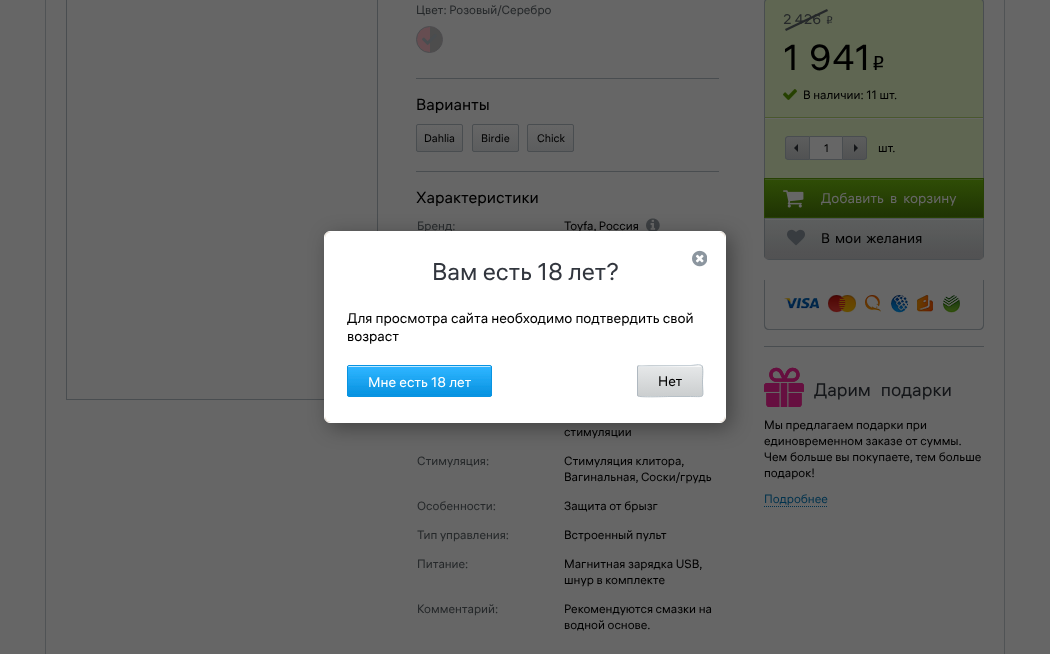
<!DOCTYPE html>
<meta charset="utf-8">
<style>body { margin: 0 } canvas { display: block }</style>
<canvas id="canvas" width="1050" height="654"></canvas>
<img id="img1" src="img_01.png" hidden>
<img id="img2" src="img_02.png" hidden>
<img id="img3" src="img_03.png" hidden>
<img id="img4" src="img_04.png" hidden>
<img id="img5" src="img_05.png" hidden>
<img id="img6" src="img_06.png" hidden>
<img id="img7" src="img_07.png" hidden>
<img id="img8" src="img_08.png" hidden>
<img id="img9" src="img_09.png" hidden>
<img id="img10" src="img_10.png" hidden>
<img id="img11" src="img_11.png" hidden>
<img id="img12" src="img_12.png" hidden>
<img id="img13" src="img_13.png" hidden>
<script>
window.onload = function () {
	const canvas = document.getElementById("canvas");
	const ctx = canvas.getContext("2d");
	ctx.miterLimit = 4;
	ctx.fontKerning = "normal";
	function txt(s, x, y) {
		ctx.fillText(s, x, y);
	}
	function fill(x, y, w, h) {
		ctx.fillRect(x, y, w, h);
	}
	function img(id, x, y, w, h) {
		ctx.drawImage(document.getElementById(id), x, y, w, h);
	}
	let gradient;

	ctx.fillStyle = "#666666";
	fill(0, 0, 1050, 654);
	ctx.strokeStyle = "#505355";
	ctx.strokeRect(45.5, -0.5, 959, 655);
	ctx.strokeStyle = "#494D50";
	ctx.strokeRect(66.5, -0.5, 311, 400);
	ctx.fillStyle = "#664D51";
	ctx.beginPath();
	ctx.arc(429.5, 39.5, 13, 0, Math.PI * 2);
	ctx.fill();
	ctx.strokeStyle = "#4A4D50";
	ctx.stroke();
	ctx.fillStyle = "#4D4D4D";
	ctx.beginPath();
	ctx.roundRect(430, 27, 12, 25, [0, 12, 12, 0]);
	ctx.fill();
	img("img1", 422, 34, 15, 11);
	ctx.fillStyle = "#494D50";
	fill(416, 78, 303, 1);
	ctx.save();
	ctx.beginPath();
	ctx.roundRect(416, 124, 47, 28, 2);
	ctx.clip();
	gradient = ctx.createLinearGradient(440, 125, 440, 151);
	gradient.addColorStop(0, "#666666");
	gradient.addColorStop(1, "#5C5D5E");
	ctx.fillStyle = gradient;
	fill(416, 125, 47, 26);
	ctx.restore();
	ctx.beginPath();
	ctx.roundRect(416.5, 124.5, 46, 27, 1.5);
	ctx.strokeStyle = "#494D50";
	ctx.stroke();
	ctx.save();
	ctx.beginPath();
	ctx.roundRect(472, 124, 47, 28, 2);
	ctx.clip();
	gradient = ctx.createLinearGradient(496, 125, 496, 151);
	gradient.addColorStop(0, "#666666");
	gradient.addColorStop(1, "#5C5D5E");
	ctx.fillStyle = gradient;
	fill(472, 125, 47, 26);
	ctx.restore();
	ctx.beginPath();
	ctx.roundRect(472.5, 124.5, 46, 27, 1.5);
	ctx.stroke();
	ctx.save();
	ctx.beginPath();
	ctx.roundRect(527, 124, 47, 28, 2);
	ctx.clip();
	gradient = ctx.createLinearGradient(551, 125, 551, 151);
	gradient.addColorStop(0, "#666666");
	gradient.addColorStop(1, "#5C5D5E");
	ctx.fillStyle = gradient;
	fill(527, 125, 47, 26);
	ctx.restore();
	ctx.beginPath();
	ctx.roundRect(527.5, 124.5, 46, 27, 1.5);
	ctx.stroke();
	fill(416, 171, 303, 1);
	img("img2", 646, 218, 14, 13);
	ctx.fillStyle = "#5F6652";
	ctx.beginPath();
	ctx.moveTo(769, -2);
	ctx.lineTo(979, -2);
	ctx.bezierCurveTo(982, -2, 984, 0, 984, 3);
	ctx.lineTo(984, 178);
	ctx.lineTo(764, 178);
	ctx.lineTo(764, 3);
	ctx.bezierCurveTo(764, 0, 766, -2, 769, -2);
	ctx.closePath();
	ctx.fill();
	ctx.fillStyle = "#494D50";
	ctx.beginPath();
	ctx.moveTo(769, -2);
	ctx.lineTo(979, -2);
	ctx.bezierCurveTo(982, -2, 984, 0, 984, 3);
	ctx.lineTo(984, 178);
	ctx.lineTo(764, 178);
	ctx.lineTo(764, 3);
	ctx.bezierCurveTo(764, 0, 766, -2, 769, -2);
	ctx.closePath();
	ctx.moveTo(769, -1);
	ctx.lineTo(979, -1);
	ctx.bezierCurveTo(981, -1, 983, 1, 983, 3);
	ctx.lineTo(983, 178);
	ctx.lineTo(765, 178);
	ctx.lineTo(765, 3);
	ctx.bezierCurveTo(765, 1, 767, -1, 769, -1);
	ctx.closePath();
	ctx.fill("evenodd");
	ctx.fillStyle = "#25282A";
	ctx.beginPath();
	ctx.moveTo(785, 29);
	ctx.lineTo(827, 9);
	ctx.lineTo(828, 11);
	ctx.lineTo(786, 31);
	ctx.closePath();
	ctx.fill();
	img("img3", 783, 89, 14, 11);
	ctx.fillStyle = "#4A582E";
	fill(765, 117, 218, 1);
	ctx.fillStyle = "#666666";
	fill(765, 118, 218, 1);
	ctx.save();
	ctx.beginPath();
	ctx.roundRect(785, 136, 24, 24, [3, 0, 0, 3]);
	ctx.clip();
	gradient = ctx.createLinearGradient(798, 137, 798, 159);
	gradient.addColorStop(0, "#5C5D5D");
	gradient.addColorStop(1, "#515253");
	ctx.fillStyle = gradient;
	fill(785, 137, 24, 22);
	ctx.restore();
	ctx.fillStyle = "#494D50";
	ctx.beginPath();
	ctx.moveTo(788, 136);
	ctx.lineTo(809, 136);
	ctx.lineTo(809, 160);
	ctx.lineTo(788, 160);
	ctx.bezierCurveTo(786.5, 160, 785, 158.5, 785, 157);
	ctx.lineTo(785, 139);
	ctx.bezierCurveTo(785, 137.5, 786.5, 136, 788, 136);
	ctx.closePath();
	ctx.moveTo(788, 137);
	ctx.lineTo(809, 137);
	ctx.lineTo(809, 159);
	ctx.lineTo(788, 159);
	ctx.bezierCurveTo(787, 159, 786, 158, 786, 157);
	ctx.lineTo(786, 139);
	ctx.bezierCurveTo(786, 138, 787, 137, 788, 137);
	ctx.closePath();
	ctx.fill("evenodd");
	ctx.fillStyle = "#141619";
	ctx.beginPath();
	ctx.moveTo(798, 144);
	ctx.lineTo(798, 152);
	ctx.lineTo(794, 148);
	ctx.closePath();
	ctx.fill();
	ctx.fillStyle = "#666666";
	ctx.beginPath();
	ctx.rect(809.5, 136.5, 33, 23);
	ctx.fill();
	ctx.stroke();
	ctx.save();
	ctx.beginPath();
	ctx.roundRect(843, 136, 24, 24, [0, 3, 3, 0]);
	ctx.clip();
	gradient = ctx.createLinearGradient(855, 137, 855, 159);
	gradient.addColorStop(0, "#5C5D5D");
	gradient.addColorStop(1, "#515253");
	ctx.fillStyle = gradient;
	fill(843, 137, 24, 22);
	ctx.restore();
	ctx.fillStyle = "#494D50";
	ctx.beginPath();
	ctx.moveTo(843, 136);
	ctx.lineTo(864, 136);
	ctx.bezierCurveTo(865.5, 136, 867, 137.5, 867, 139);
	ctx.lineTo(867, 157);
	ctx.bezierCurveTo(867, 158.5, 865.5, 160, 864, 160);
	ctx.lineTo(843, 160);
	ctx.closePath();
	ctx.moveTo(843, 137);
	ctx.lineTo(864, 137);
	ctx.bezierCurveTo(865, 137, 866, 138, 866, 139);
	ctx.lineTo(866, 157);
	ctx.bezierCurveTo(866, 158, 865, 159, 864, 159);
	ctx.lineTo(843, 159);
	ctx.closePath();
	ctx.fill("evenodd");
	ctx.fillStyle = "#141619";
	ctx.beginPath();
	ctx.moveTo(854, 152);
	ctx.lineTo(854, 144);
	ctx.lineTo(858, 148);
	ctx.closePath();
	ctx.fill();
	gradient = ctx.createLinearGradient(874, 179, 874, 217);
	gradient.addColorStop(0, "#2F4D06");
	gradient.addColorStop(1, "#1F3303");
	ctx.fillStyle = gradient;
	fill(765, 180, 218, 37);
	ctx.fillStyle = "#3F5422";
	fill(765, 179, 218, 1);
	ctx.strokeStyle = "#274104";
	ctx.strokeRect(764.5, 178.5, 219, 39);
	img("img4", 783, 190, 21, 18);
	ctx.save();
	ctx.beginPath();
	ctx.roundRect(764, 178, 220, 82, [0, 0, 5, 5]);
	ctx.clip();
	gradient = ctx.createLinearGradient(874, 219, 874, 259);
	gradient.addColorStop(0, "#5C5E5E");
	gradient.addColorStop(0.36, "#595A5A");
	gradient.addColorStop(0.51, "#565858");
	gradient.addColorStop(0.82, "#535354");
	gradient.addColorStop(1, "#525253");
	ctx.fillStyle = gradient;
	fill(764, 220, 220, 39);
	ctx.restore();
	ctx.fillStyle = "#636464";
	fill(765, 219, 218, 1);
	ctx.fillStyle = "#505456";
	fill(764, 218, 220, 1);
	ctx.save();
	ctx.beginPath();
	ctx.roundRect(764, 178, 220, 82, [0, 0, 5, 5]);
	ctx.clip();
	ctx.fillStyle = "#494D50";
	fill(983, 218, 1, 42);
	fill(764, 259, 220, 1);
	ctx.fillStyle = "#464A4D";
	fill(764, 218, 1, 42);
	ctx.restore();
	img("img5", 787, 229, 18, 17);
	ctx.fillStyle = "#494D50";
	ctx.beginPath();
	ctx.moveTo(764, 280);
	ctx.lineTo(984, 280);
	ctx.lineTo(984, 325);
	ctx.bezierCurveTo(984, 328, 982, 330, 979, 330);
	ctx.lineTo(769, 330);
	ctx.bezierCurveTo(766, 330, 764, 328, 764, 325);
	ctx.closePath();
	ctx.moveTo(765, 280);
	ctx.lineTo(983, 280);
	ctx.lineTo(983, 325);
	ctx.bezierCurveTo(983, 327, 981, 329, 979, 329);
	ctx.lineTo(769, 329);
	ctx.bezierCurveTo(767, 329, 765, 327, 765, 325);
	ctx.closePath();
	ctx.fill("evenodd");
	img("img6", 784, 298, 36, 11);
	img("img7", 828, 295, 28, 18);
	img("img8", 865, 295, 16, 17);
	img("img9", 891, 295, 17, 18);
	img("img10", 917, 295, 16, 17);
	img("img11", 943, 295, 17, 18);
	fill(764, 346, 220, 1);
	img("img12", 764, 367, 40, 40);
	ctx.beginPath();
	ctx.moveTo(764, 506.5);
	ctx.lineTo(828, 506.5);
	ctx.strokeStyle = "#00324D";
	ctx.setLineDash([1, 1]);
	ctx.stroke();
	ctx.fillStyle = "rgba(0, 0, 0, 0.35)";
	ctx.filter = "blur(10px)";
	ctx.beginPath();
	ctx.roundRect(329, 236, 402, 192, 6);
	ctx.fill();
	ctx.filter = "none";
	ctx.font = "italic 12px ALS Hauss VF";
	ctx.fillStyle = "#25282A";
	txt("Цвет: Розовый/Серебро", 416, 14);
	ctx.font = "italic 16px ALS Hauss VF";
	ctx.fillStyle = "#000000";
	txt("Варианты", 416, 110);
	ctx.font = "italic 11px ALS Hauss VF";
	txt("Dahlia", 424, 142);
	txt("Birdie", 481, 142);
	txt("Chick", 537, 142);
	ctx.font = "italic 16px ALS Hauss VF";
	txt("Характеристики", 416, 203);
	ctx.font = "italic 12px ALS Hauss VF";
	ctx.fillStyle = "#25282A";
	txt("Бренд:", 417, 230);
	ctx.fillStyle = "#000000";
	txt("Toyfa, Россия", 564, 230);
	txt("стимуляции", 564, 436);
	ctx.fillStyle = "#25282A";
	txt("Стимуляция:", 417, 465);
	ctx.fillStyle = "#000000";
	txt("Стимуляция клитора,", 564, 465);
	txt("Вагинальная, Соски/грудь", 564, 481);
	ctx.fillStyle = "#25282A";
	txt("Особенности:", 417, 510);
	ctx.fillStyle = "#000000";
	txt("Защита от брызг", 564, 510);
	ctx.fillStyle = "#25282A";
	txt("Тип управления:", 417, 539);
	ctx.fillStyle = "#000000";
	txt("Встроенный пульт", 564, 539);
	ctx.fillStyle = "#25282A";
	txt("Питание:", 417, 568);
	ctx.fillStyle = "#000000";
	txt("Магнитная зарядка USB,", 564, 568);
	txt("шнур в комплекте", 564, 584);
	ctx.fillStyle = "#25282A";
	txt("Комментарий:", 417, 613);
	ctx.fillStyle = "#000000";
	txt("Рекомендуются смазки на", 564, 613);
	txt("водной основе.", 564, 629);
	ctx.font = "italic 14px ALS Hauss VF";
	ctx.fillStyle = "#25282A";
	txt("2 426", 783, 24);
	ctx.font = "11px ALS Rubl";
	txt("o", 826, 24);
	ctx.wordSpacing = "2px";
	ctx.font = "italic 36px ALS Hauss VF";
	ctx.fillStyle = "#000000";
	txt("1 941", 783, 70);
	ctx.wordSpacing = "0px";
	ctx.font = "20px ALS Rubl";
	txt("o", 872, 70);
	ctx.font = "italic 12px ALS Hauss VF";
	txt("В наличии: 11 шт.", 803, 99);
	ctx.font = "italic 11px ALS Hauss VF";
	txt("1", 824, 152);
	ctx.font = "italic 12px ALS Hauss VF";
	txt("шт.", 878, 152);
	ctx.wordSpacing = "3px";
	ctx.font = "italic 14px ALS Hauss VF";
	ctx.fillStyle = "#666666";
	txt("Добавить в корзину", 821, 203);
	ctx.wordSpacing = "2px";
	ctx.fillStyle = "#000000";
	txt("В мои желания", 821, 243);
	ctx.wordSpacing = "6px";
	ctx.font = "italic 18px ALS Hauss VF";
	ctx.fillStyle = "#141619";
	txt("Дарим подарки", 814, 396);
	ctx.wordSpacing = "0px";
	ctx.font = "italic 12px ALS Hauss VF";
	ctx.fillStyle = "#000000";
	txt("Мы предлагаем подарки при", 764, 429);
	txt("единовременном заказе от суммы.", 764, 445);
	txt("Чем больше вы покупаете, тем больше", 764, 461);
	txt("подарок!", 764, 477);
	ctx.fillStyle = "#00324D";
	txt("Подробнее", 764, 503);
	ctx.fillStyle = "#E1CFBA";
	ctx.beginPath();
	ctx.roundRect(324.5, 231.5, 401, 191, 5.5);
	ctx.fill();
	ctx.strokeStyle = "#FFFFFF";
	ctx.setLineDash([]);
	ctx.stroke();
	ctx.fillStyle = "#FFFFFF";
	ctx.beginPath();
	ctx.roundRect(325, 232, 400, 77, [6, 6, 0, 0]);
	ctx.fill();
	img("img13", 692, 250, 15, 17);
	ctx.font = "italic 24px ALS Hauss VF";
	ctx.fillStyle = "#32363E";
	txt("Вам есть 18 лет?", 432, 280);
	ctx.fillStyle = "#FFFFFF";
	ctx.beginPath();
	ctx.roundRect(325, 309, 400, 113, [0, 0, 6, 6]);
	ctx.fill();
	ctx.font = "italic 14px ALS Hauss VF";
	ctx.fillStyle = "#000000";
	txt("Для просмотра сайта необходимо подтвердить свой", 347, 323);
	txt("возраст", 347, 341);
	ctx.save();
	ctx.beginPath();
	ctx.roundRect(347, 365, 145, 32, 2);
	ctx.clip();
	gradient = ctx.createLinearGradient(420, 366, 420, 396);
	gradient.addColorStop(0, "#2DB3FF");
	gradient.addColorStop(0.18, "#29B0FC");
	gradient.addColorStop(0.2, "#25B0FA");
	gradient.addColorStop(0.25, "#28ADF9");
	gradient.addColorStop(0.28, "#23ADF8");
	gradient.addColorStop(0.33, "#23ABF6");
	gradient.addColorStop(0.35, "#1FA9F5");
	gradient.addColorStop(0.38, "#22A8F4");
	gradient.addColorStop(0.43, "#1FA7F3");
	gradient.addColorStop(0.45, "#1AA5F2");
	gradient.addColorStop(0.53, "#1DA3EF");
	gradient.addColorStop(0.58, "#18A1ED");
	gradient.addColorStop(0.63, "#199FEC");
	gradient.addColorStop(0.68, "#0F9CE9");
	gradient.addColorStop(0.7, "#139BE8");
	gradient.addColorStop(0.8, "#1198E6");
	gradient.addColorStop(0.83, "#0798E5");
	gradient.addColorStop(0.9, "#0996E3");
	gradient.addColorStop(0.93, "#0E95E3");
	gradient.addColorStop(0.95, "#0593E1");
	gradient.addColorStop(0.98, "#0A94E2");
	gradient.addColorStop(1, "#0593E0");
	ctx.fillStyle = gradient;
	fill(347, 366, 145, 30);
	ctx.restore();
	ctx.fillStyle = "#C0E8FF";
	ctx.beginPath();
	ctx.moveTo(349, 367);
	ctx.lineTo(490, 367);
	ctx.bezierCurveTo(491, 367, 491, 367, 491, 368);
	ctx.bezierCurveTo(491, 367, 491, 366, 490, 366);
	ctx.lineTo(348, 366);
	ctx.lineTo(348, 368);
	ctx.bezierCurveTo(348, 367, 348, 367, 349, 367);
	ctx.closePath();
	ctx.fill();
	ctx.beginPath();
	ctx.roundRect(347.5, 365.5, 144, 31, 1.5);
	ctx.strokeStyle = "#0893E1";
	ctx.stroke();
	ctx.fillStyle = "#FFFFFF";
	txt("Мне есть 18 лет", 368, 387);
	ctx.save();
	ctx.beginPath();
	ctx.roundRect(637, 365, 66, 32, 2);
	ctx.clip();
	gradient = ctx.createLinearGradient(670, 336, 670, 366);
	gradient.addColorStop(0, "#E6E8E9");
	gradient.addColorStop(1, "#CBCECF");
	ctx.fillStyle = gradient;
	fill(637, 365, 66, 1);
	gradient = ctx.createLinearGradient(670, 366, 670, 396);
	gradient.addColorStop(0, "#E6E8E9");
	gradient.addColorStop(1, "#CBCECF");
	ctx.fillStyle = gradient;
	fill(637, 366, 66, 30);
	gradient = ctx.createLinearGradient(670, 396, 670, 426);
	gradient.addColorStop(0, "#E6E8E9");
	gradient.addColorStop(1, "#CBCECF");
	ctx.fillStyle = gradient;
	fill(637, 396, 66, 1);
	ctx.restore();
	ctx.fillStyle = "rgba(255, 255, 255, 0.7)";
	ctx.beginPath();
	ctx.moveTo(639, 367);
	ctx.lineTo(701, 367);
	ctx.bezierCurveTo(702, 367, 702, 367, 702, 368);
	ctx.bezierCurveTo(702, 363, 694, 366, 691, 366);
	ctx.lineTo(649, 366);
	ctx.bezierCurveTo(646, 366, 638, 363, 638, 368);
	ctx.bezierCurveTo(638, 367, 638, 367, 639, 367);
	ctx.closePath();
	ctx.fill();
	ctx.beginPath();
	ctx.moveTo(638, 366);
	ctx.lineTo(690.5, 365.5);
	ctx.bezierCurveTo(694.5, 365.5, 699.5, 363, 702, 366);
	ctx.strokeStyle = "#C7D1D8";
	ctx.stroke();
	ctx.beginPath();
	ctx.moveTo(702, 366);
	ctx.bezierCurveTo(703.5, 367.5, 702.5, 378.5, 702.5, 381);
	ctx.bezierCurveTo(702.5, 399, 706.5, 396.5, 690.5, 396.5);
	ctx.lineTo(670, 396.5);
	ctx.bezierCurveTo(666.5, 396.5, 639, 397.5, 638, 396);
	ctx.strokeStyle = "#B7C0C7";
	ctx.stroke();
	ctx.beginPath();
	ctx.moveTo(638, 396);
	ctx.lineTo(637.5, 395);
	ctx.lineTo(637.5, 367);
	ctx.lineTo(638, 366);
	ctx.strokeStyle = "#AFB8C0";
	ctx.stroke();
	ctx.fillStyle = "#000000";
	txt("Нет", 658, 386);
};
</script>
